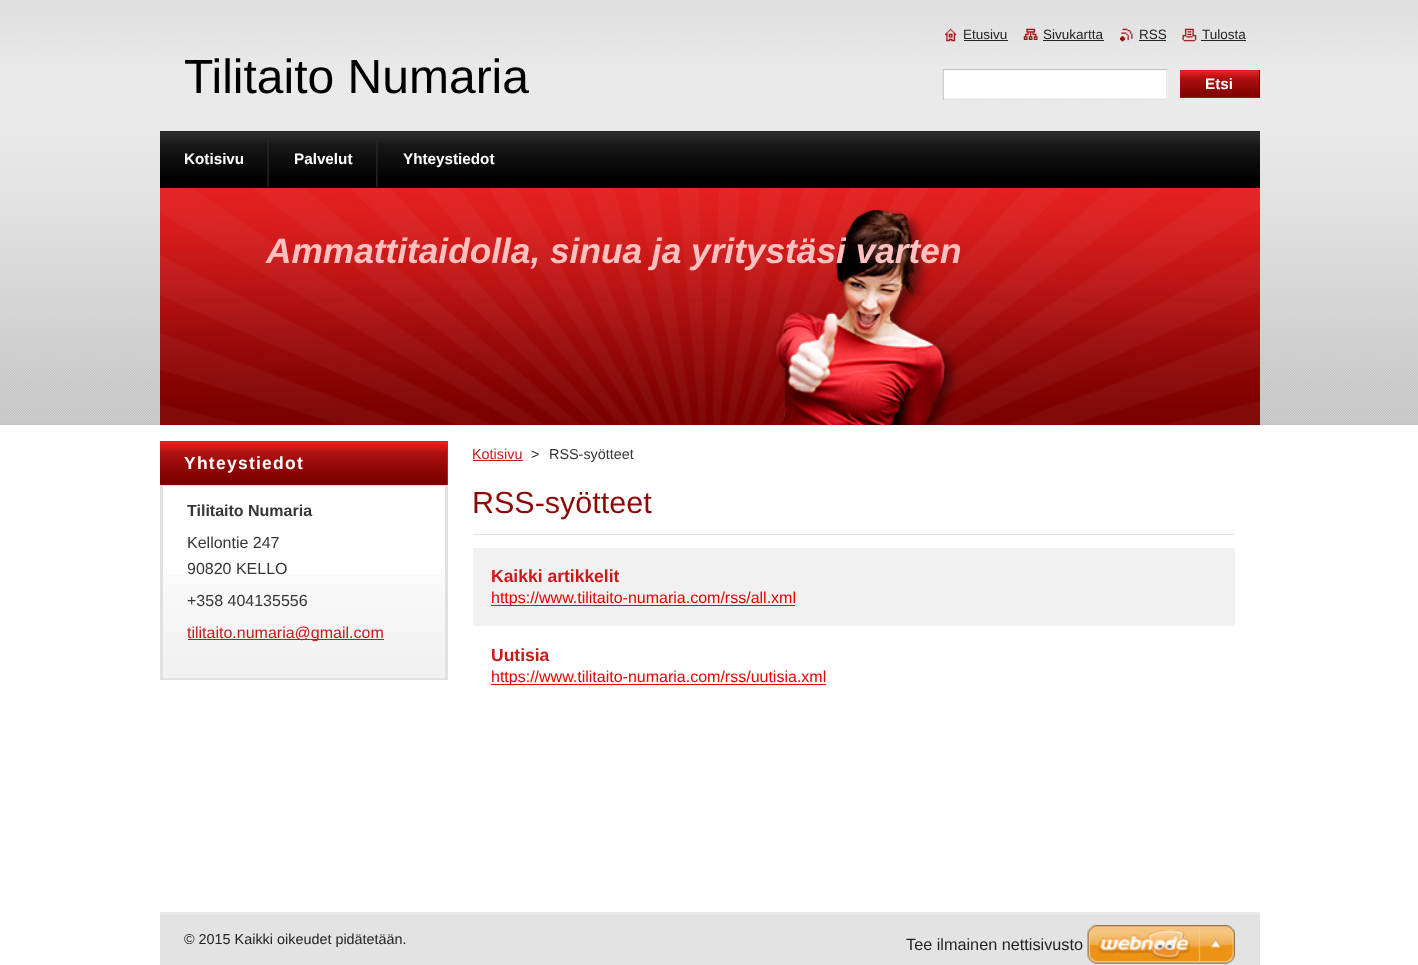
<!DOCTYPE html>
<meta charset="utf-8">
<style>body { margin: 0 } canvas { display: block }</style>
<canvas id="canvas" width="1418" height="965"></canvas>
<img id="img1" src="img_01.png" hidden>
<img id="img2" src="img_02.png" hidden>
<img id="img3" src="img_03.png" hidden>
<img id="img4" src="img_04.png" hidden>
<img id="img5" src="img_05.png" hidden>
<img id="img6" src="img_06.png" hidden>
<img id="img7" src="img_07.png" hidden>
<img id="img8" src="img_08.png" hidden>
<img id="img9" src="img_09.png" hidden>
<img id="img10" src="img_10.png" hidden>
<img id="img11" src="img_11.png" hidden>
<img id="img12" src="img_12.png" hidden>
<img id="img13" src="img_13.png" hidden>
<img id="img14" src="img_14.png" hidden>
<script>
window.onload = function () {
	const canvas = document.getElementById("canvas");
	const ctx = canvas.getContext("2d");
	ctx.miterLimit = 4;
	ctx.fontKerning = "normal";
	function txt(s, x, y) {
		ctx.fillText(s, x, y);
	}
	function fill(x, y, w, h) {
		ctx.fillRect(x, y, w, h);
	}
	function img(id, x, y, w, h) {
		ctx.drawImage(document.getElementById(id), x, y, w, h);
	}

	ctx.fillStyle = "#FFFFFF";
	fill(0, 0, 1418, 965);
	img("img1", 0, 0, 1418, 425);
	img("img2", 945, 28, 12, 14);
	ctx.fillStyle = "#242424";
	fill(964, 40, 44, 1);
	img("img3", 1023, 28, 15, 12);
	fill(1043, 40, 61, 1);
	img("img4", 1120, 28, 13, 14);
	fill(1139, 40, 27, 1);
	img("img5", 1182, 28, 15, 14);
	fill(1201, 40, 45, 1);
	ctx.fillStyle = "#FFFFFF";
	fill(1167, 69, 1, 31);
	img("img6", 942, 69, 226, 31);
	ctx.fillStyle = "#E52020";
	fill(1180, 70, 79, 28);
	img("img7", 1180, 72, 79, 26);
	ctx.fillStyle = "#610303";
	fill(1259, 70, 1, 28);
	ctx.fillStyle = "#000000";
	fill(160, 131, 1100, 57);
	img("img8", 160, 131, 1100, 45);
	img("img9", 267, 139, 2, 49);
	img("img10", 376, 139, 2, 49);
	img("img11", 160, 188, 1100, 237);
	img("img12", 163, 575, 282, 103);
	ctx.fillStyle = "#E52020";
	fill(160, 441, 288, 44);
	img("img13", 160, 443, 288, 42);
	ctx.fillStyle = "#E1E1E1";
	fill(160, 485, 288, 1);
	fill(445, 486, 3, 194);
	fill(160, 678, 288, 2);
	fill(160, 486, 3, 194);
	ctx.fillStyle = "#CA1919";
	fill(188, 639, 196, 1);
	fill(473, 460, 50, 1);
	ctx.fillStyle = "#E1E1E1";
	fill(473, 534, 762, 1);
	ctx.fillStyle = "#F1F1F1";
	fill(473, 548, 762, 78);
	ctx.fillStyle = "#EC0000";
	fill(491, 605, 304, 1);
	fill(491, 684, 335, 1);
	ctx.fillStyle = "#E3E3E3";
	fill(160, 915, 1100, 50);
	ctx.fillStyle = "#EAEAEA";
	fill(160, 912, 1100, 3);
	img("img14", 1087, 925, 148, 39);
	ctx.font = "13.5px Liberation Sans";
	ctx.fillStyle = "#242424";
	txt("Etusivu", 963, 39);
	txt("Sivukartta", 1043, 39);
	txt("RSS", 1139, 39);
	txt("Tulosta", 1202, 39);
	ctx.save();
	ctx.beginPath();
	ctx.rect(185, 38, 344, 93);
	ctx.clip();
	ctx.font = "48px Liberation Sans";
	ctx.fillStyle = "#000000";
	txt("Tilitaito Numaria", 184, 93);
	ctx.restore();
	ctx.font = "bold 15.25px Liberation Sans";
	ctx.fillStyle = "#FFFFFF";
	txt("Etsi", 1205, 89);
	txt("Kotisivu", 184, 164);
	txt("Palvelut", 294, 164);
	txt("Yhteystiedot", 403, 164);
	ctx.font = "italic bold 35.25px Liberation Sans";
	ctx.fillStyle = "#FFC0C0";
	txt("Ammattitaidolla, sinua ja yritystäsi varten", 266, 263);
	ctx.letterSpacing = "1.25px";
	ctx.font = "bold 17.5px Liberation Sans";
	ctx.fillStyle = "#FFFFFF";
	txt("Yhteystiedot", 184, 469);
	ctx.letterSpacing = "0px";
	ctx.font = "bold 16px Liberation Sans";
	ctx.fillStyle = "#363636";
	txt("Tilitaito Numaria", 187, 516);
	ctx.font = "16px Liberation Sans";
	txt("Kellontie 247", 187, 548);
	ctx.save();
	ctx.beginPath();
	ctx.rect(188, 486, 232, 167);
	ctx.clip();
	txt("90820 KELLO", 187, 574);
	ctx.restore();
	txt("+358 404135556", 187, 606);
	ctx.fillStyle = "#CA1919";
	txt("tilitaito.numaria@gmail.com", 187, 638);
	ctx.font = "14.4px Liberation Sans";
	txt("Kotisivu", 472, 459);
	ctx.fillStyle = "#363636";
	txt(">", 531, 459);
	txt("RSS-syötteet", 549, 459);
	ctx.font = "30.5px Liberation Sans";
	ctx.fillStyle = "#900707";
	txt("RSS-syötteet", 472, 513);
	ctx.font = "bold 17.5px Liberation Sans";
	ctx.fillStyle = "#CA1919";
	txt("Kaikki artikkelit", 491, 582);
	ctx.font = "16px Liberation Sans";
	ctx.fillStyle = "#EC0000";
	txt("https://www.tilitaito-numaria.com/rss/all.xml", 491, 603);
	ctx.font = "bold 17.5px Liberation Sans";
	ctx.fillStyle = "#CA1919";
	txt("Uutisia", 491, 661);
	ctx.font = "16px Liberation Sans";
	ctx.fillStyle = "#EC0000";
	txt("https://www.tilitaito-numaria.com/rss/uutisia.xml", 491, 682);
	ctx.font = "14.4px Liberation Sans";
	ctx.fillStyle = "#242424";
	txt("© 2015 Kaikki oikeudet pidätetään.", 184, 944);
	ctx.font = "16.25px Liberation Sans";
	txt("Tee ilmainen nettisivusto", 906, 950);
};
</script>
